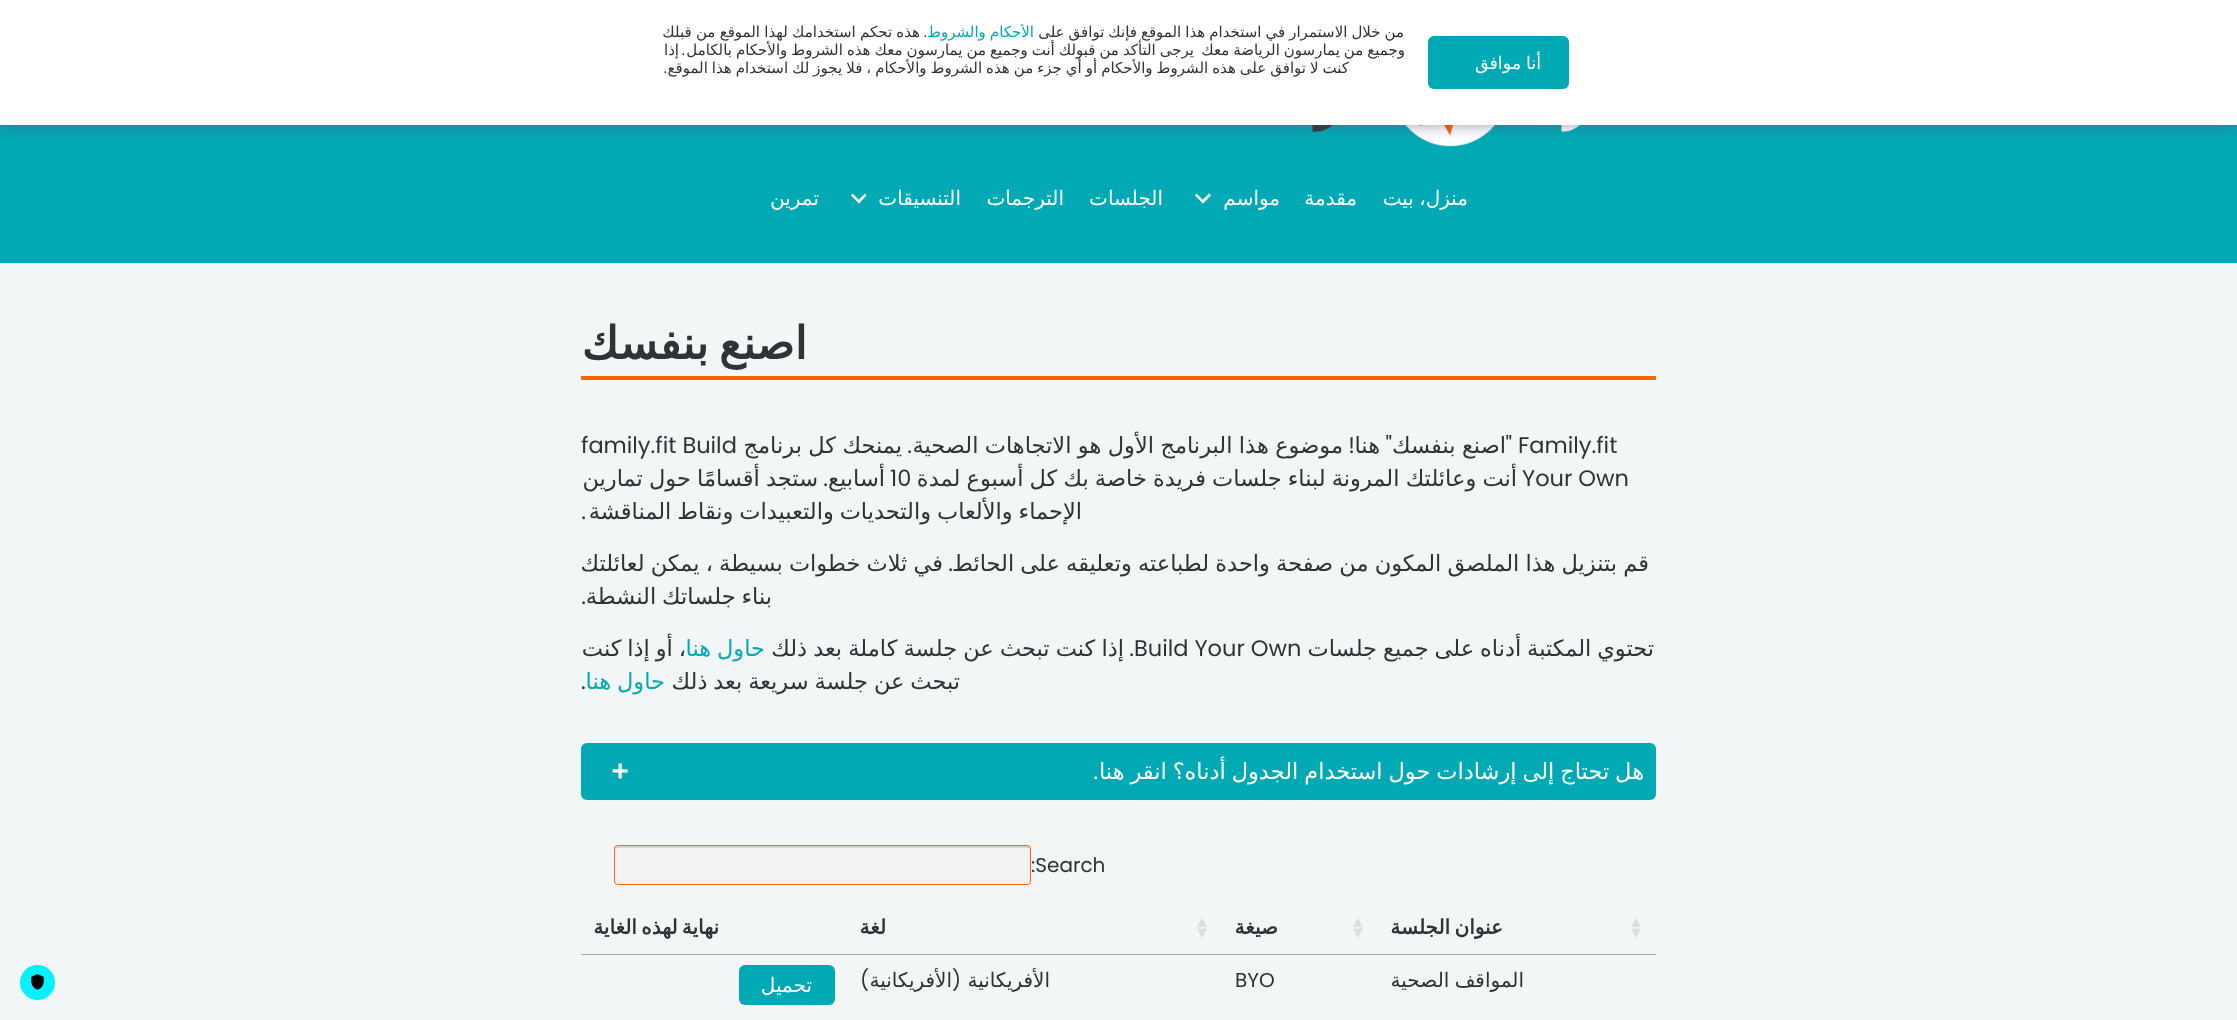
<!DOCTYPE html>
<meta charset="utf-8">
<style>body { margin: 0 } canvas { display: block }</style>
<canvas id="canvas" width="2237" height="1020"></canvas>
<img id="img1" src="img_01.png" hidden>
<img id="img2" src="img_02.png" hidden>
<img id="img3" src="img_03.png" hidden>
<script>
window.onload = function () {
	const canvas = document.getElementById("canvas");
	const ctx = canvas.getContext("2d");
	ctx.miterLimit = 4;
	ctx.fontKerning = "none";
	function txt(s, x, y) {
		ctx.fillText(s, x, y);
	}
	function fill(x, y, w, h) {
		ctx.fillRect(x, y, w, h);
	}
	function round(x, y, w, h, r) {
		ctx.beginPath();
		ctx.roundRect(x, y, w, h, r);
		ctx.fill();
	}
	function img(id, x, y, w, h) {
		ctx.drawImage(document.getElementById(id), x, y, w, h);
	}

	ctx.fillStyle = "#F2F6F6";
	fill(0, 0, 2237, 1020);
	ctx.fillStyle = "#00A9B3";
	fill(0, 125, 2237, 138);
	img("img1", 1312, 125, 268, 22);
	ctx.fillStyle = "rgba(86, 86, 131, 0.6)";
	ctx.filter = "blur(7.5px)";
	ctx.beginPath();
	ctx.rect(0, 0, 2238, 125);
	ctx.fill();
	ctx.filter = "none";
	ctx.fillStyle = "#FFFFFF";
	fill(0, 0, 2237, 125);
	ctx.fillStyle = "#00A9B3";
	round(1428, 36, 141, 53, 6);
	ctx.fillStyle = "#FFFFFF";
	ctx.beginPath();
	ctx.moveTo(1209, 193.5);
	ctx.lineTo(1211, 195.5);
	ctx.lineTo(1203, 203.5);
	ctx.lineTo(1201, 201.5);
	ctx.closePath();
	ctx.fill();
	ctx.beginPath();
	ctx.moveTo(1196.5, 193.5);
	ctx.lineTo(1204.5, 201.5);
	ctx.lineTo(1203, 203.5);
	ctx.lineTo(1195, 195.5);
	ctx.closePath();
	ctx.fill();
	ctx.beginPath();
	ctx.moveTo(865, 193.5);
	ctx.lineTo(866.5, 195.5);
	ctx.lineTo(859, 203.5);
	ctx.lineTo(857, 201.5);
	ctx.closePath();
	ctx.fill();
	ctx.beginPath();
	ctx.moveTo(852.5, 193.5);
	ctx.lineTo(860.5, 201.5);
	ctx.lineTo(859, 203.5);
	ctx.lineTo(851, 195.5);
	ctx.closePath();
	ctx.fill();
	ctx.fillStyle = "#FF6500";
	fill(581, 376, 1075, 4);
	ctx.fillStyle = "#00A9B3";
	round(581, 743, 1075, 57, 6);
	img("img2", 612, 763, 16, 16);
	ctx.fillStyle = "#F2F2F2";
	round(614, 845, 417, 40, 4);
	ctx.fillStyle = "#D4D4D4";
	ctx.beginPath();
	ctx.moveTo(618, 848);
	ctx.lineTo(1028, 848);
	ctx.bezierCurveTo(1029, 848, 1030, 849, 1030, 850);
	ctx.bezierCurveTo(1030, 848, 1030, 846, 1028, 846);
	ctx.lineTo(618, 846);
	ctx.lineTo(615, 847);
	ctx.lineTo(615, 850);
	ctx.bezierCurveTo(615, 849, 616, 848, 618, 848);
	ctx.closePath();
	ctx.fill();
	ctx.beginPath();
	ctx.roundRect(614.5, 845.5, 416, 39, 3.5);
	ctx.strokeStyle = "#FF6500";
	ctx.stroke();
	ctx.fillStyle = "#A9ACAC";
	fill(848, 954, 808, 1);
	fill(581, 954, 267, 1);
	ctx.fillStyle = "#00A9B3";
	round(739, 965, 96, 40, 6);
	ctx.fillStyle = "#00F1FF";
	ctx.beginPath();
	ctx.arc(37.5, 982.5, 17.5, 0, Math.PI * 2);
	ctx.fill();
	img("img3", 31, 974, 13, 16);
	ctx.letterSpacing = "1.25px";
	ctx.wordSpacing = "-2px";
	ctx.direction = "rtl";
	ctx.font = "17.5px DejaVu Sans";
	ctx.fillStyle = "#FFFFFF";
	txt("أنا موافق", 1541, 69);
	ctx.save();
	ctx.beginPath();
	ctx.rect(664, 24, 744, 79);
	ctx.clip();
	ctx.letterSpacing = "0px";
	ctx.wordSpacing = "-0.75px";
	ctx.font = "15px DejaVu Sans";
	ctx.fillStyle = "#2E3336";
	txt("من خلال الاستمرار في استخدام هذا الموقع فإنك توافق على", 1404, 37);
	ctx.fillStyle = "#00A9B3";
	txt("الأحكام والشروط", 1034, 37);
	ctx.restore();
	ctx.letterSpacing = "0px";
	ctx.wordSpacing = "0px";
	ctx.font = "15px Poppins";
	ctx.fillStyle = "#2E3336";
	txt(".", 927, 37);
	ctx.wordSpacing = "-0.5px";
	ctx.font = "15px DejaVu Sans";
	txt("هذه تحكم استخدامك لهذا الموقع من قبلك", 920, 37);
	ctx.wordSpacing = "-0.75px";
	txt("يرجى التأكد من قبولك أنت وجميع من يمارسون معك هذه الشروط والأحكام بالكامل", 1194, 55);
	txt("وجميع من يمارسون الرياضة معك", 1405, 55);
	ctx.wordSpacing = "0px";
	ctx.font = "15px Poppins";
	txt(".", 685, 55);
	ctx.font = "15px DejaVu Sans";
	txt("إذا", 679, 55);
	ctx.wordSpacing = "-0.75px";
	txt("كنت لا توافق على هذه الشروط والأحكام أو أي جزء من هذه الشروط والأحكام ، فلا يجوز لك استخدام هذا الموقع", 1349, 73);
	ctx.wordSpacing = "0px";
	ctx.font = "15px Poppins";
	txt(".", 667, 73);
	ctx.wordSpacing = "-1px";
	ctx.font = "20px DejaVu Sans";
	ctx.fillStyle = "#FFFFFF";
	txt("منزل، بيت", 1468, 205);
	ctx.wordSpacing = "0px";
	txt("مقدمة", 1357, 205);
	txt("مواسم", 1280, 205);
	txt("الجلسات", 1163, 205);
	txt("الترجمات", 1064, 205);
	txt("التنسيقات", 961, 205);
	txt("تمرين", 819, 205);
	ctx.wordSpacing = "-4px";
	ctx.font = "bold 45px DejaVu Sans";
	ctx.fillStyle = "#2E3336";
	txt("اصنع بنفسك", 807, 359);
	ctx.wordSpacing = "0px";
	ctx.direction = "ltr";
	ctx.font = "22.5px Poppins";
	txt("Family.fit", 1518, 453);
	ctx.direction = "rtl";
	txt("\"", 1512, 453);
	ctx.wordSpacing = "-0.75px";
	ctx.font = "22.5px DejaVu Sans";
	txt("اصنع بنفسك", 1506, 453);
	ctx.wordSpacing = "0px";
	ctx.font = "22.5px Poppins";
	txt("\"", 1392, 453);
	ctx.font = "22.5px DejaVu Sans";
	txt("هنا", 1380, 453);
	ctx.font = "22.5px Poppins";
	txt("!", 1355, 453);
	ctx.wordSpacing = "-0.75px";
	ctx.font = "22.5px DejaVu Sans";
	txt("موضوع هذا البرنامج الأول هو الاتجاهات الصحية", 1343, 453);
	ctx.wordSpacing = "0px";
	ctx.font = "22.5px Poppins";
	txt(".", 912, 453);
	ctx.wordSpacing = "-0.75px";
	ctx.font = "22.5px DejaVu Sans";
	txt("يمنحك كل برنامج", 902, 453);
	ctx.wordSpacing = "0px";
	ctx.direction = "ltr";
	ctx.font = "22.5px Poppins";
	txt("family.fit Build", 581, 453);
	ctx.wordSpacing = "-1px";
	ctx.direction = "rtl";
	ctx.font = "22.5px DejaVu Sans";
	txt("أنت وعائلتك المرونة لبناء جلسات فريدة خاصة بك كل أسبوع لمدة", 1517, 486);
	ctx.wordSpacing = "0px";
	ctx.direction = "ltr";
	ctx.font = "22.5px Poppins";
	txt("Your Own", 1522, 486);
	txt("10", 890, 486);
	ctx.direction = "rtl";
	ctx.font = "22.5px DejaVu Sans";
	txt("أسابيع", 885, 486);
	ctx.font = "22.5px Poppins";
	txt(".", 828, 486);
	ctx.wordSpacing = "-1px";
	ctx.font = "22.5px DejaVu Sans";
	txt("ستجد أقسامًا حول تمارين", 818, 486);
	ctx.wordSpacing = "-1.25px";
	txt("الإحماء والألعاب والتحديات والتعبيدات ونقاط المناقشة", 1082, 519);
	ctx.wordSpacing = "0px";
	ctx.font = "22.5px Poppins";
	txt(".", 586, 519);
	ctx.wordSpacing = "-1px";
	ctx.font = "22.5px DejaVu Sans";
	txt("قم بتنزيل هذا الملصق المكون من صفحة واحدة لطباعته وتعليقه على الحائط", 1649, 571);
	ctx.wordSpacing = "0px";
	ctx.font = "22.5px Poppins";
	txt(".", 953, 571);
	ctx.wordSpacing = "-1px";
	ctx.font = "22.5px DejaVu Sans";
	txt("في ثلاث خطوات بسيطة ، يمكن لعائلتك", 943, 571);
	ctx.wordSpacing = "-1.25px";
	txt("بناء جلساتك النشطة", 772, 604);
	ctx.wordSpacing = "0px";
	ctx.font = "22.5px Poppins";
	txt(".", 586, 604);
	ctx.wordSpacing = "-1.25px";
	ctx.font = "22.5px DejaVu Sans";
	txt("تحتوي المكتبة أدناه على جميع جلسات", 1654, 656);
	ctx.wordSpacing = "0px";
	ctx.direction = "ltr";
	ctx.font = "22.5px Poppins";
	txt("Build Your Own", 1134, 656);
	ctx.direction = "rtl";
	txt(".", 1134, 656);
	ctx.wordSpacing = "-1px";
	ctx.font = "22.5px DejaVu Sans";
	txt("إذا كنت تبحث عن جلسة كاملة بعد ذلك", 1124, 656);
	ctx.wordSpacing = "-1.25px";
	ctx.fillStyle = "#00A9B3";
	txt("حاول هنا", 765, 656);
	ctx.fillStyle = "#2E3336";
	txt("، أو إذا كنت", 686, 656);
	txt("تبحث عن جلسة سريعة بعد ذلك", 960, 689);
	ctx.fillStyle = "#00A9B3";
	txt("حاول هنا", 665, 689);
	ctx.wordSpacing = "0px";
	ctx.direction = "ltr";
	ctx.font = "22.5px Poppins";
	ctx.fillStyle = "#2E3336";
	txt(".", 581, 689);
	ctx.wordSpacing = "-1.25px";
	ctx.direction = "rtl";
	ctx.font = "22.5px DejaVu Sans";
	ctx.fillStyle = "#FFFFFF";
	txt("هل تحتاج إلى إرشادات حول استخدام الجدول أدناه؟ انقر هنا", 1644, 779);
	ctx.wordSpacing = "0px";
	ctx.font = "22.5px Poppins";
	txt(".", 1098, 779);
	ctx.direction = "ltr";
	ctx.font = "20px Poppins";
	ctx.fillStyle = "#2E3336";
	txt(":Search", 1031, 872);
	ctx.font = "bold 16px Liberation Sans";
	ctx.fillStyle = "#DADEDE";
	txt("▲", 1628, 927);
	ctx.wordSpacing = "-2px";
	ctx.direction = "rtl";
	ctx.font = "bold 20px DejaVu Sans";
	ctx.fillStyle = "#2E3336";
	txt("عنوان الجلسة", 1503, 934);
	ctx.wordSpacing = "0px";
	ctx.direction = "ltr";
	ctx.font = "bold 16px Liberation Sans";
	ctx.fillStyle = "#DADEDE";
	txt("▼", 1628, 938);
	txt("▲", 1350, 927);
	txt("▼", 1350, 938);
	ctx.direction = "rtl";
	ctx.font = "bold 20px DejaVu Sans";
	ctx.fillStyle = "#2E3336";
	txt("صيغة", 1278, 934);
	ctx.direction = "ltr";
	ctx.font = "bold 16px Liberation Sans";
	ctx.fillStyle = "#DADEDE";
	txt("▲", 1194, 927);
	ctx.direction = "rtl";
	ctx.font = "bold 20px DejaVu Sans";
	ctx.fillStyle = "#2E3336";
	txt("لغة", 886, 934);
	ctx.direction = "ltr";
	ctx.font = "bold 16px Liberation Sans";
	ctx.fillStyle = "#DADEDE";
	txt("▼", 1194, 938);
	ctx.wordSpacing = "-2px";
	ctx.direction = "rtl";
	ctx.font = "bold 20px DejaVu Sans";
	ctx.fillStyle = "#2E3336";
	txt("نهاية لهذه الغاية", 719, 934);
	ctx.wordSpacing = "-1px";
	ctx.font = "20px DejaVu Sans";
	txt("المواقف الصحية", 1524, 987);
	ctx.wordSpacing = "0px";
	ctx.direction = "ltr";
	ctx.font = "20px Poppins";
	txt("BYO", 1235, 987);
	ctx.direction = "rtl";
	ctx.font = "20px DejaVu Sans";
	txt("الأفريكانية", 1050, 987);
	ctx.font = "20px Poppins";
	txt("(", 961, 987);
	ctx.font = "20px DejaVu Sans";
	txt("الأفريكانية", 952, 987);
	ctx.font = "20px Poppins";
	txt(")", 869, 987);
	ctx.font = "20px DejaVu Sans";
	ctx.fillStyle = "#FFFFFF";
	txt("تحميل", 812, 992);
};
</script>
